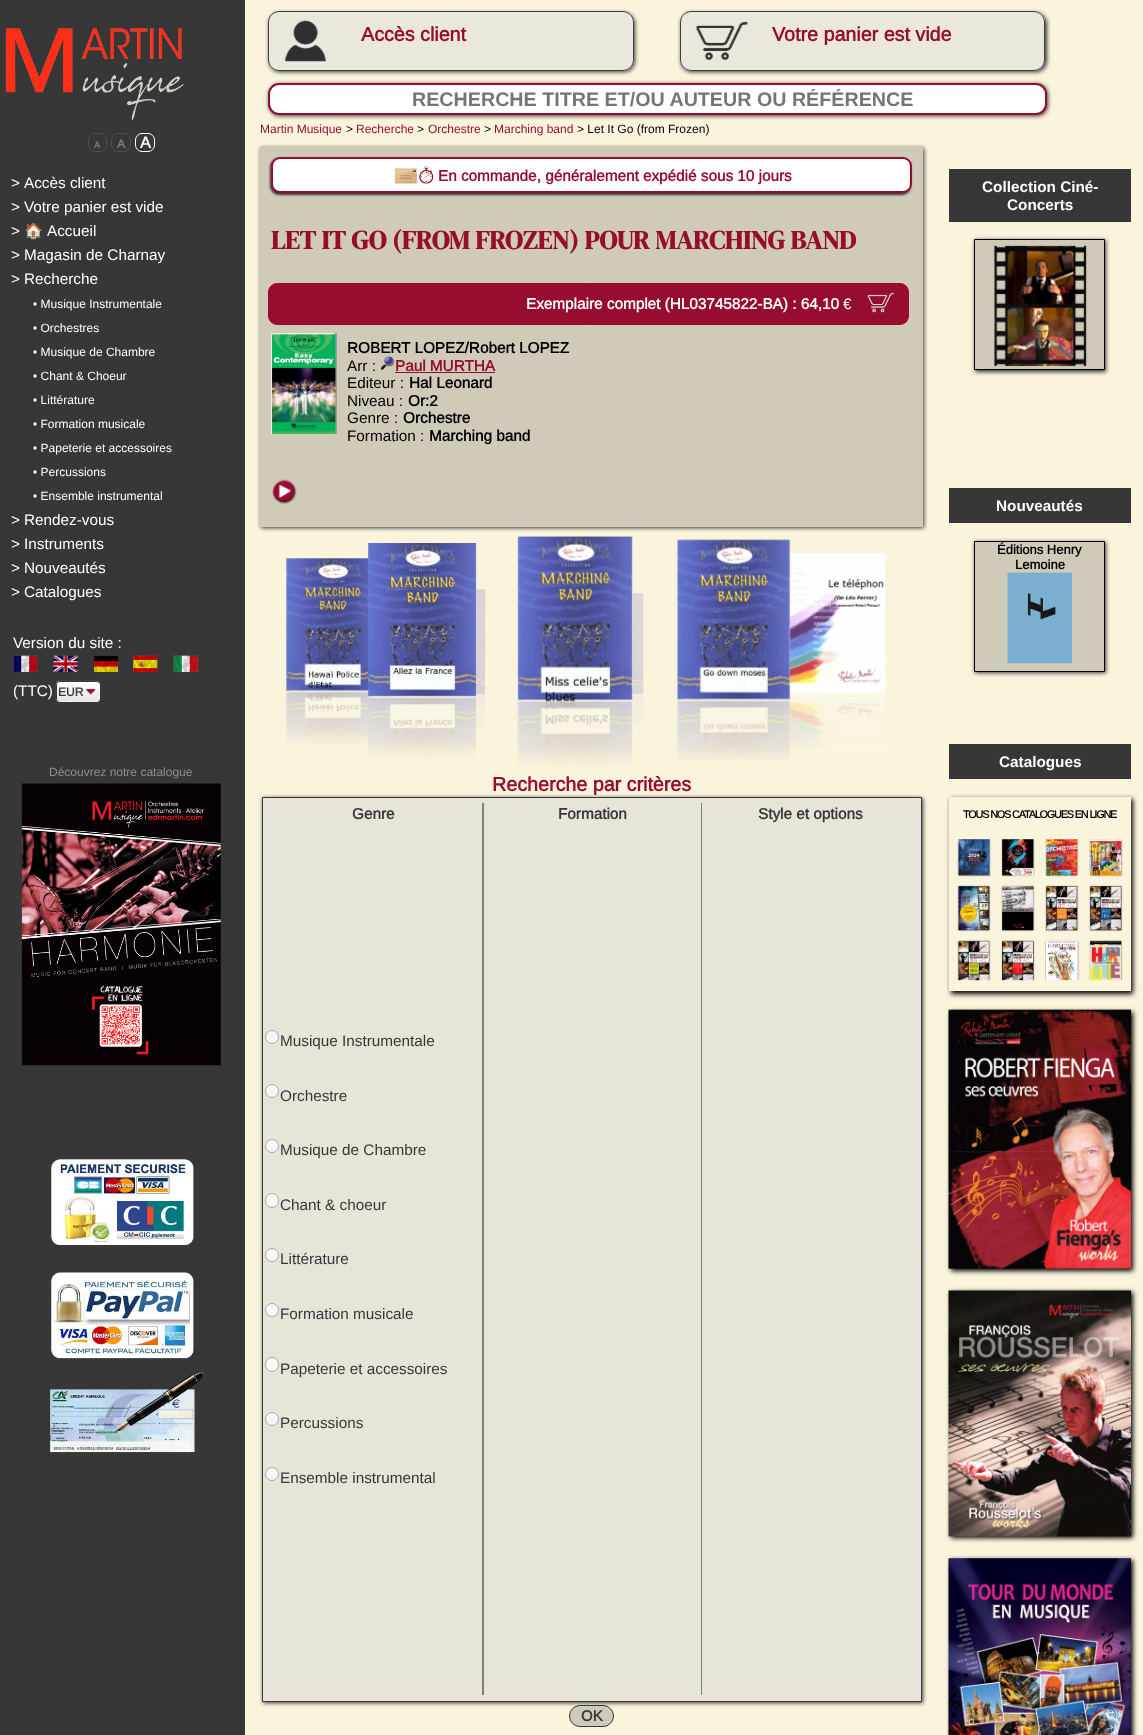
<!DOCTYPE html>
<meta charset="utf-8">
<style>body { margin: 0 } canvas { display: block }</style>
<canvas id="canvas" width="1143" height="1735"></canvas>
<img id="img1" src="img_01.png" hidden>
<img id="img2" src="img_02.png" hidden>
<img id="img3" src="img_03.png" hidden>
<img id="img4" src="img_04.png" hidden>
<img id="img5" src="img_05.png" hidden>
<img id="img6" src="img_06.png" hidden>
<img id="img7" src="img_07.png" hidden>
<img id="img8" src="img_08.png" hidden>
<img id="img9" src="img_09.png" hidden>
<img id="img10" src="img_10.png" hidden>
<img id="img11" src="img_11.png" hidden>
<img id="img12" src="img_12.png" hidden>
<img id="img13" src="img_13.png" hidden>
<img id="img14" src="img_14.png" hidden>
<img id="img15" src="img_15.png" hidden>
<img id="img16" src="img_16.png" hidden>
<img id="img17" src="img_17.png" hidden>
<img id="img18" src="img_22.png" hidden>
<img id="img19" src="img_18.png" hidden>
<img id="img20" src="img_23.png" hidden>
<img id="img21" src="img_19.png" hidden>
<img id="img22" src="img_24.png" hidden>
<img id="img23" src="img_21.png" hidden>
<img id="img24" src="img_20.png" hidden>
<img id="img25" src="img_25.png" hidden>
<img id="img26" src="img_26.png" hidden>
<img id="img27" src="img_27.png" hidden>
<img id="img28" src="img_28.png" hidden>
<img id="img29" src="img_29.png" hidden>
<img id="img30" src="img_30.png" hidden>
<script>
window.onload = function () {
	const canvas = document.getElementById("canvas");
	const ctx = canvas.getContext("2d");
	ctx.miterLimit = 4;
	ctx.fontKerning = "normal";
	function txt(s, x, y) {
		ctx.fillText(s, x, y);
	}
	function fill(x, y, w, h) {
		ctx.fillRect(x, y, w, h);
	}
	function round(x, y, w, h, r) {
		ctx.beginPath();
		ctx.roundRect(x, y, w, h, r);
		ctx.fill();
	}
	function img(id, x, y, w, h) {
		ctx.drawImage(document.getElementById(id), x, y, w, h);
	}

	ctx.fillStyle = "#FAF4DD";
	fill(0, 0, 1143, 1735);
	img("img1", 0, 0, 245, 123);
	ctx.fillStyle = "#373737";
	ctx.filter = "blur(2px)";
	ctx.beginPath();
	ctx.roundRect(269, 13, 366, 59, 11);
	ctx.fill();
	ctx.filter = "none";
	ctx.fillStyle = "#EAE8DD";
	round(268, 11, 366, 60, 11);
	img("img2", 284, 20, 42, 42);
	ctx.beginPath();
	ctx.roundRect(268.5, 11.5, 365, 59, 10.5);
	ctx.strokeStyle = "#3F3F3F";
	ctx.stroke();
	ctx.fillStyle = "#373737";
	ctx.filter = "blur(2px)";
	ctx.beginPath();
	ctx.roundRect(681, 13, 366, 59, 11);
	ctx.fill();
	ctx.filter = "none";
	ctx.fillStyle = "#EAE8DD";
	round(680, 11, 365, 60, 11);
	img("img3", 695, 21, 53, 39);
	ctx.beginPath();
	ctx.roundRect(680.5, 11.5, 364, 59, 10.5);
	ctx.stroke();
	ctx.fillStyle = "#373737";
	ctx.filter = "blur(2px)";
	ctx.beginPath();
	ctx.roundRect(269, 84, 779, 32, 11);
	ctx.fill();
	ctx.filter = "none";
	ctx.fillStyle = "#FFFFFF";
	ctx.beginPath();
	ctx.roundRect(269, 84, 777, 30, 10);
	ctx.fill();
	ctx.strokeStyle = "#970D30";
	ctx.lineWidth = 2;
	ctx.stroke();
	ctx.fillStyle = "#373737";
	fill(0, 123, 245, 1612);
	ctx.beginPath();
	ctx.roundRect(88.5, 133.5, 18, 18, 6.5);
	ctx.strokeStyle = "#505050";
	ctx.lineWidth = 1;
	ctx.stroke();
	ctx.beginPath();
	ctx.roundRect(111.5, 133.5, 19, 18, 6.5);
	ctx.stroke();
	ctx.beginPath();
	ctx.roundRect(135.5, 133.5, 19, 18, 6.5);
	ctx.strokeStyle = "#FFFFFF";
	ctx.stroke();
	img("img4", 13, 655, 25, 18);
	img("img5", 53, 655, 25, 18);
	img("img6", 93, 655, 25, 18);
	img("img7", 133, 655, 25, 18);
	img("img8", 173, 655, 25, 18);
	img("img9", 55, 680, 46, 23);
	ctx.beginPath();
	ctx.roundRect(56.5, 681.5, 44, 21, 3.5);
	ctx.strokeStyle = "#373737";
	ctx.stroke();
	img("img10", 21, 783, 200, 283);
	img("img11", 47, 1157, 157, 296);
	ctx.filter = "blur(2px)";
	ctx.beginPath();
	ctx.rect(261, 148, 663, 380);
	ctx.fill();
	ctx.filter = "none";
	ctx.fillStyle = "#D0CBB9";
	fill(260, 146, 663, 381);
	ctx.fillStyle = "#343434";
	ctx.filter = "blur(1px)";
	ctx.beginPath();
	ctx.roundRect(270, 158, 641, 37, 9);
	ctx.fill();
	ctx.filter = "none";
	ctx.fillStyle = "#FFFFFF";
	ctx.beginPath();
	ctx.roundRect(272, 158, 639, 34, 8);
	ctx.fill();
	ctx.strokeStyle = "#970D30";
	ctx.lineWidth = 2;
	ctx.stroke();
	img("img12", 394, 166, 40, 18);
	ctx.fillStyle = "#970D30";
	ctx.beginPath();
	ctx.roundRect(268.5, 283.5, 640, 41, 8.5);
	ctx.fill();
	ctx.lineWidth = 1;
	ctx.stroke();
	img("img13", 867, 292, 27, 21);
	ctx.fillStyle = "#EEEEEE";
	fill(271, 333, 66, 2);
	ctx.fillStyle = "#9F9F9F";
	fill(335, 333, 2, 101);
	fill(271, 433, 66, 1);
	ctx.fillStyle = "#EEEEEE";
	fill(271, 333, 1, 101);
	img("img14", 272, 334, 64, 100);
	img("img15", 380, 356, 15, 15);
	ctx.fillStyle = "#970D30";
	fill(395, 372, 100, 1);
	img("img16", 272, 479, 25, 26);
	img("img17", 286, 558, 83, 186);
	img("img18", 476, 589, 10, 139);
	img("img19", 368, 543, 109, 216);
	img("img20", 631, 593, 13, 132);
	img("img21", 517, 536, 116, 231);
	img("img22", 884, 571, 3, 151);
	img("img23", 789, 553, 97, 196);
	img("img24", 676, 539, 115, 222);
	ctx.fillStyle = "#373737";
	ctx.filter = "blur(2px)";
	ctx.beginPath();
	ctx.rect(263, 798, 660, 905);
	ctx.fill();
	ctx.filter = "none";
	ctx.fillStyle = "#E8E4D8";
	ctx.beginPath();
	ctx.rect(262.5, 797.5, 659, 904);
	ctx.fill();
	ctx.strokeStyle = "#373737";
	ctx.stroke();
	ctx.fillStyle = "#808080";
	fill(482, 803, 2, 892);
	fill(701, 803, 1, 892);
	ctx.fillStyle = "#F8F8F8";
	ctx.beginPath();
	ctx.arc(272, 1037, 6.5, 0, Math.PI * 2);
	ctx.fill();
	ctx.strokeStyle = "#AAAAAA";
	ctx.stroke();
	ctx.beginPath();
	ctx.arc(272, 1091, 6.5, 0, Math.PI * 2);
	ctx.fill();
	ctx.stroke();
	ctx.beginPath();
	ctx.arc(272, 1146, 6.5, 0, Math.PI * 2);
	ctx.fill();
	ctx.stroke();
	ctx.beginPath();
	ctx.roundRect(265.5, 1193.5, 13, 14, 6.5);
	ctx.fill();
	ctx.stroke();
	ctx.beginPath();
	ctx.arc(272, 1255, 6.5, 0, Math.PI * 2);
	ctx.fill();
	ctx.stroke();
	ctx.beginPath();
	ctx.arc(272, 1310, 6.5, 0, Math.PI * 2);
	ctx.fill();
	ctx.stroke();
	ctx.beginPath();
	ctx.roundRect(265.5, 1357.5, 13, 14, 6.5);
	ctx.fill();
	ctx.stroke();
	ctx.beginPath();
	ctx.arc(272, 1419, 6.5, 0, Math.PI * 2);
	ctx.fill();
	ctx.stroke();
	ctx.beginPath();
	ctx.arc(272, 1474, 6.5, 0, Math.PI * 2);
	ctx.fill();
	ctx.stroke();
	ctx.fillStyle = "#D0CBB9";
	ctx.beginPath();
	ctx.roundRect(569.5, 1705.5, 44, 21, 10.5);
	ctx.fill();
	ctx.strokeStyle = "#373737";
	ctx.stroke();
	ctx.fillStyle = "#373737";
	fill(949, 169, 182, 53);
	ctx.filter = "blur(2px)";
	ctx.beginPath();
	ctx.rect(975, 240, 131, 132);
	ctx.fill();
	ctx.filter = "none";
	ctx.fillStyle = "#D0CBB9";
	ctx.beginPath();
	ctx.rect(974.5, 239.5, 130, 130);
	ctx.fill();
	ctx.strokeStyle = "#000000";
	ctx.stroke();
	img("img25", 994, 245, 93, 122);
	ctx.fillStyle = "#373737";
	fill(949, 488, 182, 35);
	ctx.filter = "blur(2px)";
	ctx.beginPath();
	ctx.rect(975, 542, 131, 131);
	ctx.fill();
	ctx.filter = "none";
	ctx.fillStyle = "#D0CBB9";
	ctx.beginPath();
	ctx.rect(974.5, 541.5, 130, 130);
	ctx.fill();
	ctx.stroke();
	img("img26", 1007, 572, 65, 92);
	ctx.fillStyle = "#373737";
	fill(949, 744, 182, 35);
	ctx.save();
	ctx.beginPath();
	ctx.moveTo(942, 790);
	ctx.lineTo(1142, 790);
	ctx.lineTo(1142, 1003);
	ctx.lineTo(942, 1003);
	ctx.closePath();
	ctx.moveTo(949, 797);
	ctx.lineTo(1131, 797);
	ctx.lineTo(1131, 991);
	ctx.lineTo(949, 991);
	ctx.closePath();
	ctx.clip("evenodd");
	ctx.fillStyle = "#000000";
	ctx.filter = "blur(2.5px)";
	ctx.beginPath();
	ctx.rect(951, 799, 182, 195);
	ctx.fill();
	ctx.filter = "none";
	ctx.restore();
	img("img27", 957, 839, 166, 142);
	ctx.fillStyle = "#000000";
	ctx.filter = "blur(2.5px)";
	ctx.beginPath();
	ctx.rect(951, 1012, 182, 259);
	ctx.fill();
	ctx.filter = "none";
	img("img28", 948, 1009, 183, 260);
	ctx.filter = "blur(2.5px)";
	ctx.beginPath();
	ctx.rect(951, 1292, 182, 246);
	ctx.fill();
	ctx.filter = "none";
	img("img29", 948, 1290, 183, 247);
	ctx.filter = "blur(2.5px)";
	ctx.beginPath();
	ctx.rect(951, 1560, 182, 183);
	ctx.fill();
	ctx.filter = "none";
	img("img30", 948, 1558, 183, 177);
	ctx.font = "bold 19.7px Arimo";
	ctx.fillStyle = "#970D30";
	txt("Accès client", 361, 41);
	txt("Votre panier est vide", 772, 41);
	ctx.save();
	ctx.beginPath();
	ctx.rect(279, 89, 766, 23);
	ctx.clip();
	ctx.font = "bold 19.7px Liberation Sans";
	ctx.fillStyle = "#757575";
	txt("RECHERCHE TITRE ET/OU AUTEUR OU RÉFÉRENCE", 412, 106);
	ctx.restore();
	ctx.font = "bold 9px Arimo";
	ctx.fillStyle = "#808080";
	txt("A", 94, 148);
	ctx.font = "bold 12px Arimo";
	txt("A", 117, 148);
	ctx.font = "bold 16px Arimo";
	ctx.fillStyle = "#FEFDFD";
	txt("A", 140, 148);
	ctx.font = "15.3px Arimo";
	txt(">", 11, 188);
	txt("Accès client", 24, 188);
	txt(">", 11, 212);
	txt("Votre panier est vide", 24, 212);
	txt(">", 11, 236);
	ctx.font = "15.3px Noto Color Emoji";
	txt("🏠", 24, 236);
	ctx.font = "15.3px Arimo";
	txt("Accueil", 47, 236);
	txt(">", 11, 260);
	txt("Magasin de Charnay", 24, 260);
	txt(">", 11, 284);
	txt("Recherche", 24, 284);
	ctx.font = "12px Arimo";
	txt("• Musique Instrumentale", 33, 308);
	txt("• Orchestres", 33, 332);
	txt("• Musique de Chambre", 33, 356);
	txt("• Chant & Choeur", 33, 380);
	txt("• Littérature", 33, 404);
	txt("• Formation musicale", 33, 428);
	txt("• Papeterie et accessoires", 33, 452);
	txt("• Percussions", 33, 476);
	txt("• Ensemble instrumental", 33, 500);
	ctx.font = "15.3px Arimo";
	txt(">", 11, 525);
	txt("Rendez-vous", 24, 525);
	txt(">", 11, 549);
	txt("Instruments", 24, 549);
	txt(">", 11, 573);
	txt("Nouveautés", 24, 573);
	txt(">", 11, 597);
	txt("Catalogues", 24, 597);
	txt("Version du site :", 13, 648);
	txt("(TTC)", 13, 696);
	ctx.font = "bold 12px Arimo";
	ctx.fillStyle = "#373737";
	txt("EUR", 58, 696);
	ctx.font = "12px Arimo";
	ctx.fillStyle = "#8E8E8E";
	txt("Découvrez notre catalogue", 49, 776);
	ctx.fillStyle = "#970D30";
	txt("Martin Musique", 260, 133);
	ctx.fillStyle = "#000000";
	txt(">", 346, 133);
	ctx.fillStyle = "#970D30";
	txt("Recherche", 356, 133);
	ctx.fillStyle = "#000000";
	txt(">", 417, 133);
	ctx.fillStyle = "#970D30";
	txt("Orchestre", 428, 133);
	ctx.fillStyle = "#000000";
	txt(">", 484, 133);
	ctx.fillStyle = "#970D30";
	txt("Marching band", 494, 133);
	ctx.fillStyle = "#000000";
	txt("> Let It Go (from Frozen)", 577, 133);
	ctx.font = "bold 15.3px Arimo";
	ctx.fillStyle = "#970D30";
	txt("En commande, généralement expédié sous 10 jours", 438, 181);
	ctx.font = "bold 26.25px DM Serif Display";
	txt("LET IT GO (FROM FROZEN) POUR MARCHING BAND", 271, 249);
	ctx.font = "bold 15.3px Arimo";
	ctx.fillStyle = "#FEFDFD";
	txt("Exemplaire complet (HL03745822-BA) : 64,10", 526, 309);
	ctx.font = "15.3px Arimo";
	txt("€", 843, 309);
	ctx.font = "bold 15.3px Arimo";
	ctx.fillStyle = "#000000";
	txt("ROBERT LOPEZ/Robert LOPEZ", 347, 353);
	ctx.font = "15.3px Arimo";
	txt("Arr :", 347, 371);
	ctx.font = "bold 15.3px Arimo";
	ctx.fillStyle = "#970D30";
	txt("Paul MURTHA", 395, 371);
	ctx.font = "15.3px Arimo";
	ctx.fillStyle = "#000000";
	txt("Editeur :", 347, 388);
	ctx.font = "bold 15.3px Arimo";
	txt("Hal Leonard", 409, 388);
	ctx.font = "15.3px Arimo";
	txt("Niveau :", 347, 406);
	ctx.font = "bold 15.3px Arimo";
	txt("Or:2", 408, 406);
	ctx.font = "15.3px Arimo";
	txt("Genre :", 347, 423);
	ctx.font = "bold 15.3px Arimo";
	txt("Orchestre", 403, 423);
	ctx.font = "15.3px Arimo";
	txt("Formation :", 347, 441);
	ctx.font = "bold 15.3px Arimo";
	txt("Marching band", 429, 441);
	ctx.font = "bold 19.7px Arimo";
	ctx.fillStyle = "#970D30";
	txt("Recherche par critères", 492, 791);
	ctx.font = "bold 15.3px Arimo";
	ctx.fillStyle = "#373737";
	txt("Genre", 352, 819);
	txt("Formation", 558, 819);
	txt("Style et options", 758, 819);
	ctx.font = "15.3px Arimo";
	txt("Musique Instrumentale", 280, 1046);
	txt("Orchestre", 280, 1101);
	txt("Musique de Chambre", 280, 1155);
	txt("Chant & choeur", 280, 1210);
	txt("Littérature", 280, 1264);
	txt("Formation musicale", 280, 1319);
	txt("Papeterie et accessoires", 280, 1374);
	txt("Percussions", 280, 1428);
	txt("Ensemble instrumental", 280, 1483);
	ctx.font = "bold 15px Arimo";
	txt("OK", 581, 1721);
	ctx.font = "bold 15.3px Liberation Sans";
	ctx.fillStyle = "#FEFDFD";
	txt("Collection Ciné-", 982, 192);
	txt("Concerts", 1007, 210);
	txt("Nouveautés", 996, 511);
	ctx.font = "bold 13px Arimo";
	ctx.fillStyle = "#000000";
	txt("Éditions Henry", 997, 554);
	txt("Lemoine", 1015, 569);
	ctx.font = "bold 15.3px Liberation Sans";
	ctx.fillStyle = "#FEFDFD";
	txt("Catalogues", 999, 767);
	ctx.letterSpacing = "-1.1px";
	ctx.font = "bold 10.75px Arimo";
	ctx.fillStyle = "#000000";
	txt("TOUS NOS CATALOGUES EN LIGNE", 963, 818);
};
</script>
